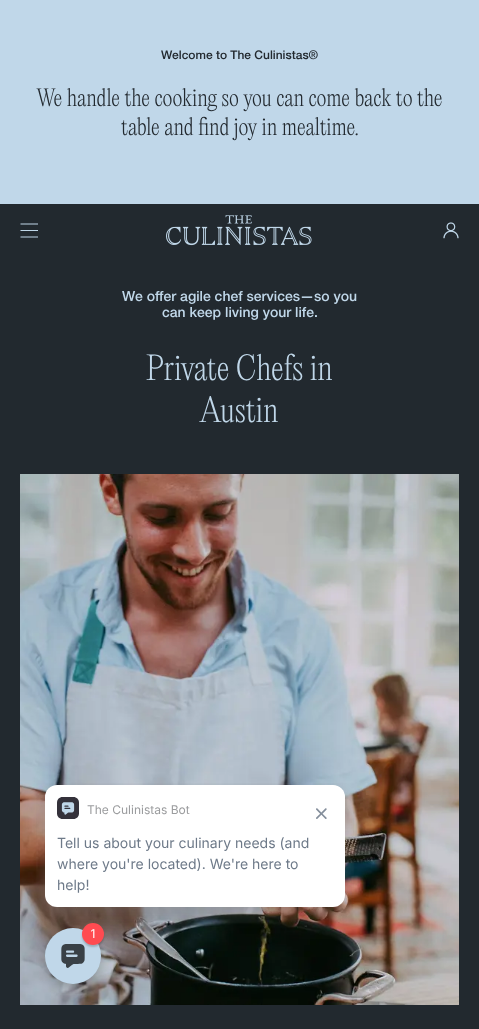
<!DOCTYPE html>
<meta charset="utf-8">
<style>body { margin: 0 } canvas { display: block }</style>
<canvas id="canvas" width="479" height="1029"></canvas>
<img id="img1" src="img_01.png" hidden>
<img id="img2" src="img_02.png" hidden>
<img id="img3" src="img_03.png" hidden>
<img id="img4" src="img_04.png" hidden>
<script>
window.onload = function () {
	const canvas = document.getElementById("canvas");
	const ctx = canvas.getContext("2d");
	ctx.miterLimit = 4;
	ctx.fontKerning = "normal";
	function txt(s, x, y) {
		ctx.fillText(s, x, y);
	}
	function fill(x, y, w, h) {
		ctx.fillRect(x, y, w, h);
	}
	function img(id, x, y, w, h) {
		ctx.drawImage(document.getElementById(id), x, y, w, h);
	}

	ctx.fillStyle = "#C0D7E9";
	fill(0, 0, 479, 1029);
	ctx.fillStyle = "#22292F";
	fill(0, 204, 479, 825);
	ctx.save();
	ctx.beginPath();
	ctx.rect(20, 223, 18, 15);
	ctx.clip();
	ctx.beginPath();
	ctx.moveTo(21, 224);
	ctx.lineTo(39, 224);
	ctx.moveTo(21, 230.5);
	ctx.lineTo(39, 230.5);
	ctx.moveTo(21, 237);
	ctx.lineTo(39, 237);
	ctx.strokeStyle = "#C0D7E9";
	ctx.lineCap = "square";
	ctx.lineJoin = "round";
	ctx.stroke();
	ctx.restore();
	img("img1", 166, 215, 146, 31);
	img("img2", 443, 222, 16, 17);
	img("img3", 20, 474, 439, 531);
	img("img4", 36, 783, 318, 211);
	ctx.font = "500 12px Helvetica Neue";
	txt("Welcome to The Culinistas®", 161, 59);
	ctx.font = "200 22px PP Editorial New";
	txt("We handle the cooking so you can come back to the", 36, 106);
	txt("table and find joy in mealtime.", 121, 135);
	ctx.font = "500 14px Helvetica Neue";
	ctx.fillStyle = "#C0D7E9";
	txt("We offer agile chef services—so you", 122, 301);
	txt("can keep living your life.", 162, 317);
	ctx.font = "200 32px PP Editorial New";
	txt("Private Chefs in", 146, 380);
	txt("Austin", 200, 422);
};
</script>
